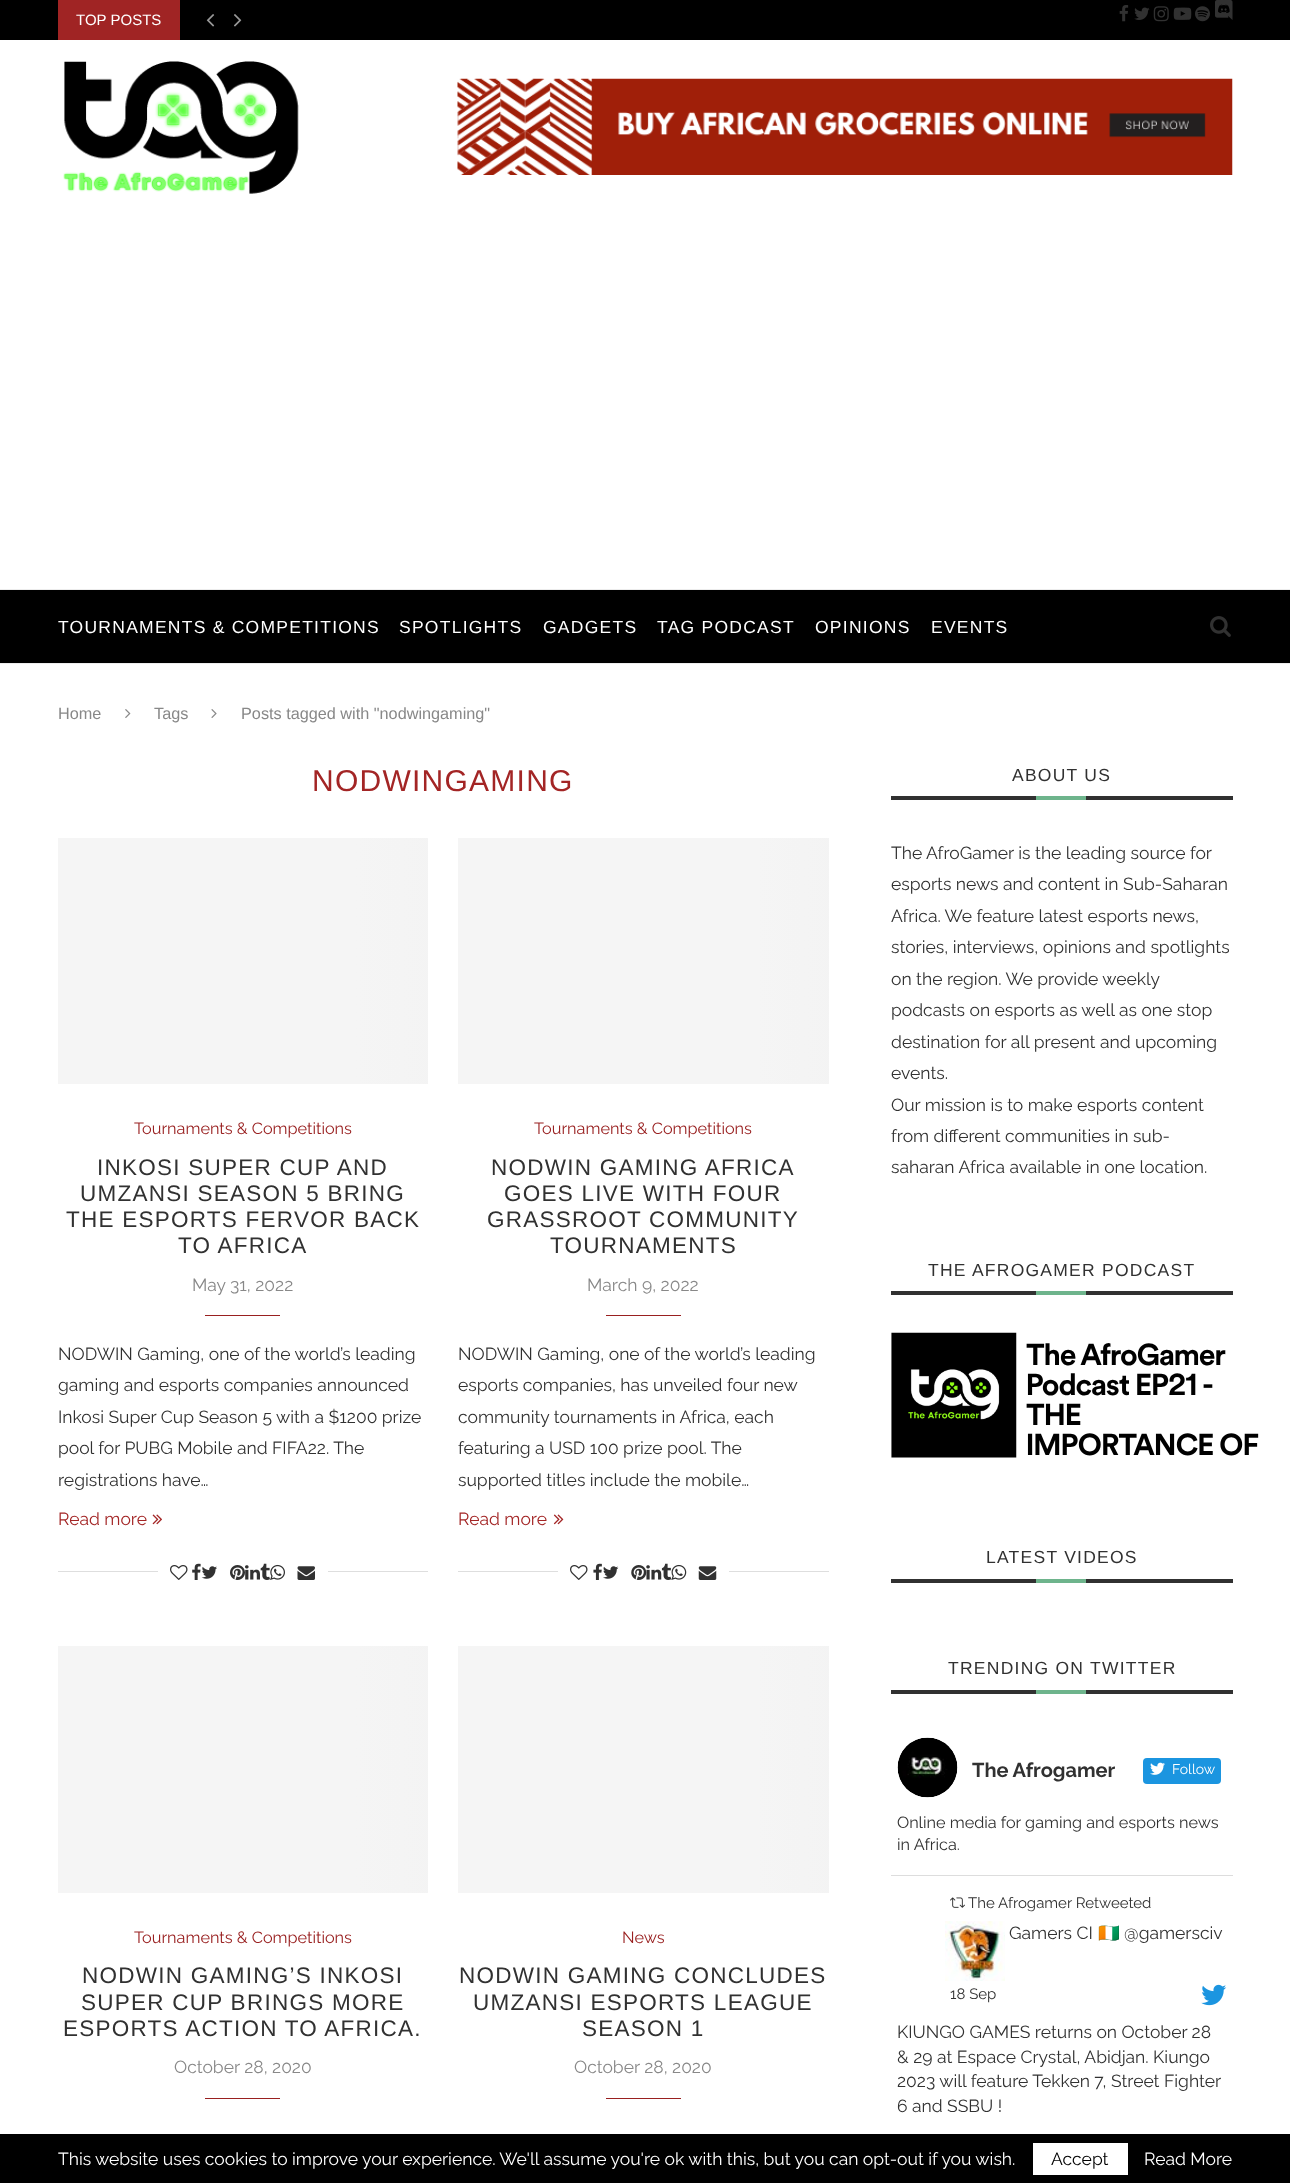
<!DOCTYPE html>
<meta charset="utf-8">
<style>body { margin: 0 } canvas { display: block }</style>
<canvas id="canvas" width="1290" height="2183"></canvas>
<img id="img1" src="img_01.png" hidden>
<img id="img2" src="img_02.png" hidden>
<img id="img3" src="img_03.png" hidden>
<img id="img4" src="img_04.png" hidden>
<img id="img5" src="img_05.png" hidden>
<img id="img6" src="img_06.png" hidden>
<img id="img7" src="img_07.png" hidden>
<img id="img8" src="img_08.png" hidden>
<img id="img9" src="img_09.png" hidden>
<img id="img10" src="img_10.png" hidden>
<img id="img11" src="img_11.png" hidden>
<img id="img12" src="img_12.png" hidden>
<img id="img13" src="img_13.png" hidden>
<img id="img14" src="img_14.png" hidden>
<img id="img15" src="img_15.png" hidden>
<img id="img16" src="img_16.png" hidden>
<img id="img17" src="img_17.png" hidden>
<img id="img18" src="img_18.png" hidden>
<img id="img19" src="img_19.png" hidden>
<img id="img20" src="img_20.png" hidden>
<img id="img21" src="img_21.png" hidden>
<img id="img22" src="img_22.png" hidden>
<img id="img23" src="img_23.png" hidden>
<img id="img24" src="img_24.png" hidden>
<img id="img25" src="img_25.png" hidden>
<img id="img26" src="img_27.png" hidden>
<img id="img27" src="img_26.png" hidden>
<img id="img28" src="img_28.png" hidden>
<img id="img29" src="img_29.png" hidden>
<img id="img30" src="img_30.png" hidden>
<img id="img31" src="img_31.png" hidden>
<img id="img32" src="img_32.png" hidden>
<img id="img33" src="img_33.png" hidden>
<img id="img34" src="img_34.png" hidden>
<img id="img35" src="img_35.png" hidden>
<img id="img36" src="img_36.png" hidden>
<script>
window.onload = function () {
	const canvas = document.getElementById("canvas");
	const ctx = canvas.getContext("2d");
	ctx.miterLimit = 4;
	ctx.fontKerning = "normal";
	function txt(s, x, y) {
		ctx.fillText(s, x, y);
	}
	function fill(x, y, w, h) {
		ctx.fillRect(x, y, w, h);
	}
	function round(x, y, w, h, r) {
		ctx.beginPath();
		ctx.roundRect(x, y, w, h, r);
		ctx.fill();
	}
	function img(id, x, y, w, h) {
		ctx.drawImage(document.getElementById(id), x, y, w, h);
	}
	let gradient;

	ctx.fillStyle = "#FFFFFF";
	fill(0, 0, 1290, 2183);
	ctx.fillStyle = "#000000";
	fill(0, 0, 1290, 40);
	ctx.fillStyle = "#A02424";
	fill(58, 0, 122, 40);
	img("img1", 206, 14, 9, 13);
	img("img2", 234, 14, 8, 13);
	img("img3", 1119, 5, 10, 17);
	img("img4", 1134, 7, 16, 13);
	img("img5", 1153, 6, 16, 16);
	img("img6", 1173, 7, 19, 13);
	img("img7", 1195, 6, 15, 16);
	img("img8", 1215, 0, 18, 20);
	img("img9", 63, 61, 236, 133);
	img("img10", 457, 78, 776, 97);
	ctx.fillStyle = "#000000";
	fill(0, 590, 1290, 73);
	ctx.fillStyle = "#ECECEC";
	fill(0, 589, 1290, 1);
	fill(0, 663, 1290, 1);
	img("img11", 1210, 616, 21, 21);
	img("img12", 125, 709, 6, 9);
	img("img13", 211, 709, 6, 9);
	gradient = ctx.createLinearGradient(805, 961, -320, 961);
	gradient.addColorStop(0, "#F5F5F5");
	gradient.addColorStop(0.15, "#EFEFEF");
	gradient.addColorStop(0.4, "#F5F5F5");
	gradient.addColorStop(1, "#F5F5F5");
	ctx.fillStyle = gradient;
	fill(58, 838, 370, 246);
	ctx.fillStyle = "#992020";
	fill(205, 1315, 75, 1);
	img("img14", 152, 1514, 10, 11);
	ctx.fillStyle = "#DEDEDE";
	fill(58, 1571, 370, 1);
	ctx.fillStyle = "#FFFFFF";
	fill(158, 1571, 170, 1);
	img("img15", 170, 1565, 18, 15);
	img("img16", 192, 1563, 9, 17);
	img("img17", 201, 1566, 16, 13);
	img("img18", 230, 1565, 15, 15);
	img("img19", 245, 1565, 15, 15);
	img("img20", 260, 1563, 10, 17);
	img("img21", 270, 1564, 15, 16);
	img("img22", 297, 1566, 18, 14);
	gradient = ctx.createLinearGradient(1206, 961, 81, 961);
	gradient.addColorStop(0, "#F5F5F5");
	gradient.addColorStop(0.15, "#EFEFEF");
	gradient.addColorStop(0.4, "#F5F5F5");
	gradient.addColorStop(1, "#F5F5F5");
	ctx.fillStyle = gradient;
	fill(458, 838, 371, 246);
	ctx.fillStyle = "#992020";
	fill(606, 1315, 75, 1);
	img("img23", 553, 1514, 11, 11);
	ctx.fillStyle = "#DEDEDE";
	fill(458, 1571, 371, 1);
	ctx.fillStyle = "#FFFFFF";
	fill(558, 1571, 171, 1);
	img("img15", 570, 1565, 18, 15);
	img("img24", 593, 1563, 9, 17);
	img("img25", 603, 1566, 16, 13);
	img("img26", 646, 1565, 16, 15);
	img("img27", 631, 1565, 16, 15);
	img("img28", 661, 1563, 11, 17);
	img("img29", 671, 1564, 16, 16);
	img("img30", 698, 1566, 19, 14);
	gradient = ctx.createLinearGradient(805, 1769, -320, 1769);
	gradient.addColorStop(0, "#F5F5F5");
	gradient.addColorStop(0.15, "#EFEFEF");
	gradient.addColorStop(0.4, "#F5F5F5");
	gradient.addColorStop(1, "#F5F5F5");
	ctx.fillStyle = gradient;
	fill(58, 1646, 370, 247);
	ctx.fillStyle = "#992020";
	fill(205, 2098, 75, 1);
	gradient = ctx.createLinearGradient(1206, 1769, 81, 1769);
	gradient.addColorStop(0, "#F5F5F5");
	gradient.addColorStop(0.15, "#EFEFEF");
	gradient.addColorStop(0.4, "#F5F5F5");
	gradient.addColorStop(1, "#F5F5F5");
	ctx.fillStyle = gradient;
	fill(458, 1646, 371, 247);
	ctx.fillStyle = "#992020";
	fill(606, 2098, 75, 1);
	ctx.fillStyle = "#313131";
	fill(891, 796, 342, 4);
	ctx.fillStyle = "#6EB48C";
	fill(1036, 796, 50, 4);
	ctx.fillStyle = "#313131";
	fill(891, 1291, 342, 4);
	ctx.fillStyle = "#6EB48C";
	fill(1036, 1291, 50, 4);
	img("img31", 891, 1332, 368, 126);
	ctx.fillStyle = "#313131";
	fill(891, 1579, 342, 4);
	ctx.fillStyle = "#6EB48C";
	fill(1036, 1579, 50, 4);
	ctx.fillStyle = "#313131";
	fill(891, 1690, 342, 4);
	ctx.fillStyle = "#6EB48C";
	fill(1036, 1690, 50, 4);
	ctx.fillStyle = "#DDDDDD";
	fill(891, 1875, 342, 1);
	img("img32", 897, 1737, 61, 61);
	ctx.fillStyle = "#1B95E0";
	round(1143, 1758, 78, 26, 4);
	img("img33", 1150, 1762, 15, 13);
	img("img34", 950, 1897, 15, 11);
	img("img35", 945, 1921, 60, 60);
	img("img36", 1201, 1984, 26, 22);
	ctx.fillStyle = "#000000";
	fill(0, 2134, 1290, 49);
	ctx.fillStyle = "#FFFFFF";
	fill(1033, 2143, 95, 32);
	ctx.font = "15px Liberation Sans";
	txt("TOP POSTS", 76, 25);
	ctx.letterSpacing = "1.25px";
	ctx.font = "17.5px Liberation Sans";
	txt("TOURNAMENTS & COMPETITIONS", 58, 633);
	txt("SPOTLIGHTS", 399, 633);
	txt("GADGETS", 543, 633);
	txt("TAG PODCAST", 657, 633);
	txt("OPINIONS", 815, 633);
	txt("EVENTS", 931, 633);
	ctx.letterSpacing = "0px";
	ctx.font = "16.25px Liberation Sans";
	ctx.fillStyle = "#888888";
	txt("Home", 58, 719);
	txt("Tags", 154, 719);
	txt("Posts tagged with \"nodwingaming\"", 241, 719);
	ctx.letterSpacing = "1.25px";
	ctx.font = "30px Liberation Sans";
	ctx.fillStyle = "#A32525";
	txt("NODWINGAMING", 312, 791);
	ctx.letterSpacing = "0px";
	ctx.font = "16.25px Raleway";
	ctx.fillStyle = "#992020";
	txt("Tournaments & Competitions", 134, 1134);
	ctx.letterSpacing = "1.25px";
	ctx.font = "22.5px Liberation Sans";
	ctx.fillStyle = "#313131";
	txt("INKOSI SUPER CUP AND", 97, 1175);
	txt("UMZANSI SEASON 5 BRING", 80, 1201);
	txt("THE ESPORTS FERVOR BACK", 66, 1227);
	txt("TO AFRICA", 178, 1253);
	ctx.letterSpacing = "0px";
	ctx.font = "17.5px Raleway";
	ctx.fillStyle = "#888888";
	txt("May 31, 2022", 192, 1291);
	ctx.fillStyle = "#313131";
	txt("NODWIN Gaming, one of the world’s leading", 58, 1360);
	txt("gaming and esports companies announced", 58, 1391);
	txt("Inkosi Super Cup Season 5 with a $1200 prize", 58, 1423);
	txt("pool for PUBG Mobile and FIFA22. The", 58, 1454);
	txt("registrations have…", 58, 1486);
	ctx.fillStyle = "#A32525";
	txt("Read more", 58, 1525);
	ctx.font = "16.25px Raleway";
	ctx.fillStyle = "#992020";
	txt("Tournaments & Competitions", 534, 1134);
	ctx.letterSpacing = "1.25px";
	ctx.font = "22.5px Liberation Sans";
	ctx.fillStyle = "#313131";
	txt("NODWIN GAMING AFRICA", 491, 1175);
	txt("GOES LIVE WITH FOUR", 504, 1201);
	txt("GRASSROOT COMMUNITY", 487, 1227);
	txt("TOURNAMENTS", 550, 1253);
	ctx.letterSpacing = "0px";
	ctx.font = "17.5px Raleway";
	ctx.fillStyle = "#888888";
	txt("March 9, 2022", 587, 1291);
	ctx.fillStyle = "#313131";
	txt("NODWIN Gaming, one of the world’s leading", 458, 1360);
	txt("esports companies, has unveiled four new", 458, 1391);
	txt("community tournaments in Africa, each", 458, 1423);
	txt("featuring a USD 100 prize pool. The", 458, 1454);
	txt("supported titles include the mobile…", 458, 1486);
	ctx.fillStyle = "#A32525";
	txt("Read more", 458, 1525);
	ctx.font = "16.25px Raleway";
	ctx.fillStyle = "#992020";
	txt("Tournaments & Competitions", 134, 1943);
	ctx.letterSpacing = "1.25px";
	ctx.font = "22.5px Liberation Sans";
	ctx.fillStyle = "#313131";
	txt("NODWIN GAMING’S INKOSI", 82, 1983);
	txt("SUPER CUP BRINGS MORE", 81, 2010);
	txt("ESPORTS ACTION TO AFRICA.", 63, 2036);
	ctx.letterSpacing = "0px";
	ctx.font = "17.5px Raleway";
	ctx.fillStyle = "#888888";
	txt("October 28, 2020", 174, 2073);
	ctx.font = "16.25px Raleway";
	ctx.fillStyle = "#992020";
	txt("News", 622, 1943);
	ctx.letterSpacing = "1.25px";
	ctx.font = "22.5px Liberation Sans";
	ctx.fillStyle = "#313131";
	txt("NODWIN GAMING CONCLUDES", 459, 1983);
	txt("UMZANSI ESPORTS LEAGUE", 473, 2010);
	txt("SEASON 1", 582, 2036);
	ctx.letterSpacing = "0px";
	ctx.font = "17.5px Raleway";
	ctx.fillStyle = "#888888";
	txt("October 28, 2020", 574, 2073);
	ctx.letterSpacing = "1.25px";
	ctx.font = "17.5px Liberation Sans";
	ctx.fillStyle = "#313131";
	txt("ABOUT US", 1012, 781);
	ctx.letterSpacing = "0px";
	ctx.font = "17.5px Raleway";
	txt("The AfroGamer is the leading source for", 891, 859);
	txt("esports news and content in Sub-Saharan", 891, 890);
	txt("Africa. We feature latest esports news,", 891, 922);
	txt("stories, interviews, opinions and spotlights", 891, 953);
	txt("on the region. We provide weekly", 891, 985);
	txt("podcasts on esports as well as one stop", 891, 1016);
	txt("destination for all present and upcoming", 891, 1048);
	txt("events.", 891, 1079);
	txt("Our mission is to make esports content", 891, 1111);
	txt("from different communities in sub-", 891, 1142);
	txt("saharan Africa available in one location.", 891, 1173);
	ctx.letterSpacing = "1.25px";
	ctx.font = "17.5px Liberation Sans";
	txt("THE AFROGAMER PODCAST", 928, 1276);
	txt("LATEST VIDEOS", 986, 1563);
	txt("TRENDING ON TWITTER", 948, 1674);
	ctx.letterSpacing = "0px";
	ctx.font = "bold 20px Raleway";
	txt("The Afrogamer", 972, 1777);
	ctx.font = "14px Raleway";
	ctx.fillStyle = "#FFFFFF";
	txt("Follow", 1172, 1774);
	ctx.font = "16.25px Raleway";
	ctx.fillStyle = "#313131";
	txt("Online media for gaming and esports news", 897, 1828);
	txt("in Africa.", 897, 1850);
	ctx.font = "15px Raleway";
	txt("The Afrogamer Retweeted", 968, 1908);
	ctx.font = "17.5px Raleway";
	txt("Gamers CI", 1009, 1939);
	ctx.font = "17.5px Noto Color Emoji";
	txt("🇨🇮", 1098, 1939);
	ctx.font = "17.5px Raleway";
	txt("@gamersciv", 1124, 1939);
	ctx.font = "15px Raleway";
	txt("18 Sep", 950, 1999);
	ctx.font = "17.5px Raleway";
	txt("KIUNGO GAMES returns on October 28", 897, 2038);
	txt("& 29 at Espace Crystal, Abidjan. Kiungo", 897, 2063);
	txt("2023 will feature Tekken 7, Street Fighter", 897, 2087);
	txt("6 and SSBU !", 897, 2112);
	ctx.fillStyle = "#FFFFFF";
	txt("This website uses cookies to improve your experience. We'll assume you're ok with this, but you can opt-out if you wish.", 58, 2165);
	ctx.fillStyle = "#000000";
	txt("Accept", 1051, 2165);
	ctx.fillStyle = "#FFFFFF";
	txt("Read More", 1144, 2165);
};
</script>
